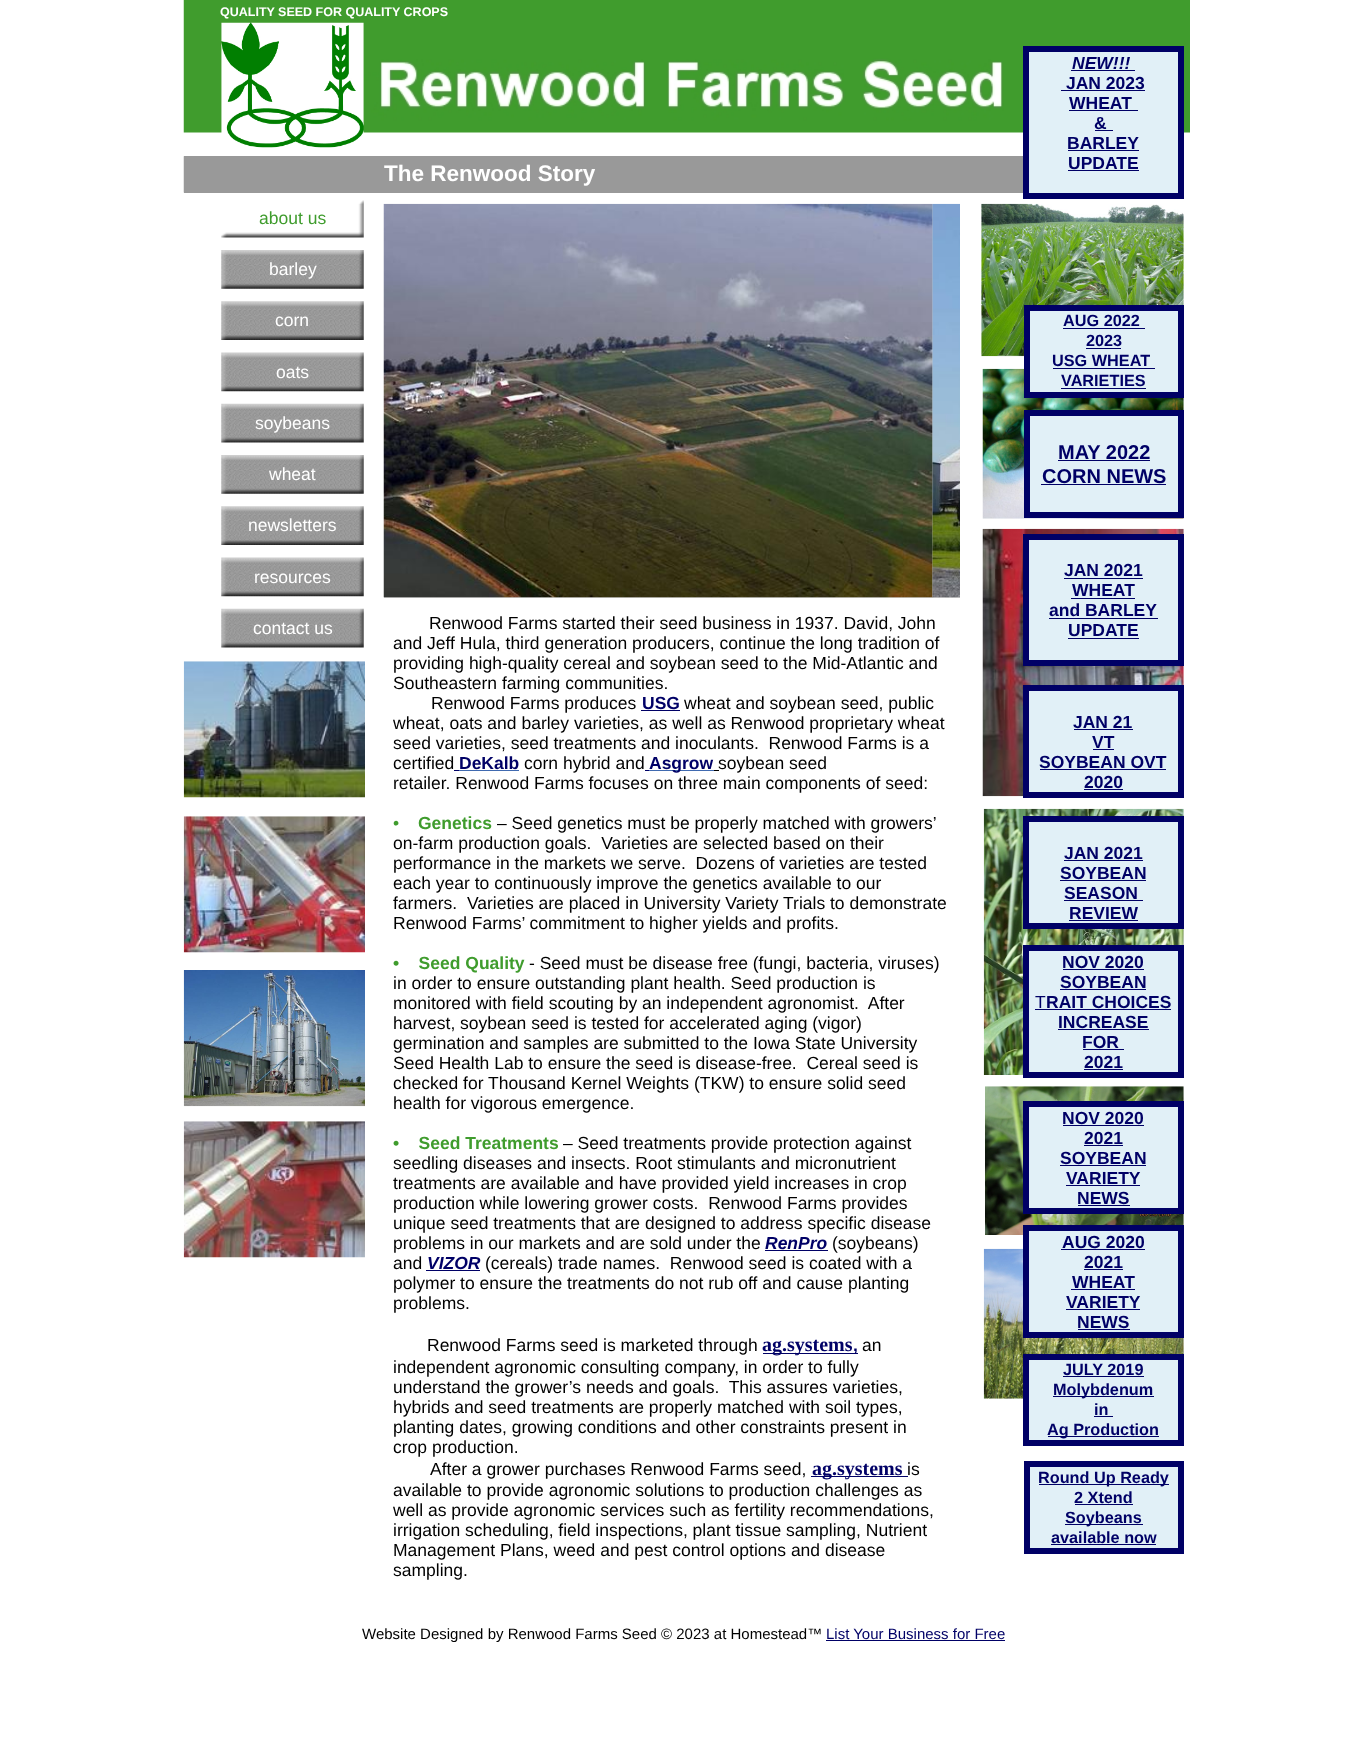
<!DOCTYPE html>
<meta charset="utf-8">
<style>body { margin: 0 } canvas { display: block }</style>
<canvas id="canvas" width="1367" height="1758"></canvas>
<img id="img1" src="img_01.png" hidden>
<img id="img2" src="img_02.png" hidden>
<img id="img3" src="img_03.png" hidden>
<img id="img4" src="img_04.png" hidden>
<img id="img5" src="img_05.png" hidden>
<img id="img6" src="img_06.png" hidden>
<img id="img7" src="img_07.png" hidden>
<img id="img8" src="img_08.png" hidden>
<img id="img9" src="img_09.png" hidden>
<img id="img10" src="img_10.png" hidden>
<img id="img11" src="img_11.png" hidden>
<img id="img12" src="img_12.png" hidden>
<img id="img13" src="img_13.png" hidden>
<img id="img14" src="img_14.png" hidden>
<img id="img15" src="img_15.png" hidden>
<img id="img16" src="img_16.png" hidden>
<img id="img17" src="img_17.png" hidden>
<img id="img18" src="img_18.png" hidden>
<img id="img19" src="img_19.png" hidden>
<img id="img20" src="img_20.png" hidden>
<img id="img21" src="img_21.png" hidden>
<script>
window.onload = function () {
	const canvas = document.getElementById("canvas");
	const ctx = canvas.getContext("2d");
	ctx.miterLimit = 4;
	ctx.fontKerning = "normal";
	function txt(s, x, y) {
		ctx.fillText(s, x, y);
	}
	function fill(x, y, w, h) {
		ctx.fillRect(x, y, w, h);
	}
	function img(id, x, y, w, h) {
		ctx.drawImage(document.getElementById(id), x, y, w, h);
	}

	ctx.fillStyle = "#FFFFFF";
	fill(0, 0, 1367, 1758);
	img("img1", 183, 0, 1007, 133);
	img("img2", 221, 22, 143, 126);
	ctx.fillStyle = "#E1F0F7";
	ctx.beginPath();
	ctx.rect(1026, 49, 155, 147);
	ctx.fill();
	ctx.strokeStyle = "#000066";
	ctx.lineWidth = 6;
	ctx.stroke();
	ctx.fillStyle = "#000066";
	fill(1071, 70, 64, 1);
	fill(1061, 90, 84, 1);
	fill(1069, 110, 69, 1);
	fill(1095, 130, 18, 1);
	fill(1068, 150, 71, 1);
	fill(1068, 170, 71, 1);
	ctx.fillStyle = "#999999";
	fill(184, 156, 839, 37);
	img("img3", 183, 156, 1, 37);
	img("img4", 221, 200, 143, 38);
	img("img5", 221, 250, 143, 39);
	img("img6", 221, 301, 143, 39);
	img("img7", 221, 352, 143, 40);
	img("img8", 221, 403, 143, 40);
	img("img5", 221, 455, 143, 39);
	img("img6", 221, 506, 143, 39);
	img("img9", 221, 557, 143, 40);
	img("img8", 221, 608, 143, 40);
	ctx.fillStyle = "#CCCCCC";
	fill(384, 204, 576, 394);
	img("img10", 383, 203, 550, 395);
	img("img11", 932, 203, 28, 395);
	img("img12", 981, 203, 203, 154);
	img("img13", 982, 368, 202, 151);
	ctx.fillStyle = "#E1F0F7";
	ctx.beginPath();
	ctx.rect(1027, 308, 154, 87);
	ctx.fill();
	ctx.stroke();
	ctx.fillStyle = "#000066";
	fill(1063, 328, 82, 1);
	fill(1086, 348, 35, 1);
	fill(1053, 368, 102, 1);
	fill(1061, 388, 85, 1);
	ctx.fillStyle = "#E1F0F7";
	ctx.beginPath();
	ctx.rect(1027, 413, 154, 102);
	ctx.fill();
	ctx.stroke();
	ctx.fillStyle = "#000066";
	fill(1058, 460, 92, 1);
	fill(1041, 484, 125, 1);
	img("img14", 982, 528, 202, 269);
	ctx.fillStyle = "#E1F0F7";
	ctx.beginPath();
	ctx.rect(1026, 537, 155, 126);
	ctx.fill();
	ctx.stroke();
	ctx.fillStyle = "#000066";
	fill(1064, 578, 79, 1);
	fill(1071, 598, 64, 1);
	fill(1049, 618, 109, 1);
	fill(1068, 638, 71, 1);
	img("img15", 183, 661, 182, 137);
	fill(641, 710, 39, 1);
	fill(454, 770, 5, 1);
	ctx.fillStyle = "#406AB0";
	fill(459, 770, 60, 1);
	ctx.fillStyle = "#000066";
	fill(645, 770, 4, 1);
	ctx.fillStyle = "#406AB0";
	fill(649, 770, 65, 1);
	ctx.fillStyle = "#000000";
	fill(714, 770, 5, 1);
	ctx.fillStyle = "#000066";
	fill(765, 1250, 63, 1);
	fill(426, 1270, 54, 1);
	fill(763, 1353, 95, 1);
	fill(811, 1476, 97, 1);
	ctx.fillStyle = "#E1F0F7";
	ctx.beginPath();
	ctx.rect(1026, 688, 155, 107);
	ctx.fill();
	ctx.stroke();
	ctx.fillStyle = "#000066";
	fill(1074, 729, 59, 1);
	fill(1093, 749, 21, 1);
	fill(1040, 769, 126, 1);
	fill(1084, 789, 39, 1);
	img("img16", 183, 816, 182, 137);
	img("img17", 983, 808, 201, 267);
	ctx.fillStyle = "#E1F0F7";
	ctx.beginPath();
	ctx.rect(1026, 819, 155, 107);
	ctx.fill();
	ctx.stroke();
	ctx.fillStyle = "#000066";
	fill(1064, 860, 79, 1);
	fill(1060, 880, 86, 1);
	fill(1064, 900, 79, 1);
	fill(1069, 920, 69, 1);
	img("img18", 183, 970, 182, 137);
	ctx.fillStyle = "#E1F0F7";
	ctx.beginPath();
	ctx.rect(1026, 948, 155, 127);
	ctx.fill();
	ctx.stroke();
	ctx.fillStyle = "#000066";
	fill(1063, 969, 81, 1);
	fill(1060, 989, 86, 1);
	fill(1035, 1009, 136, 1);
	fill(1058, 1029, 91, 1);
	fill(1083, 1049, 41, 1);
	fill(1084, 1069, 39, 1);
	img("img19", 985, 1086, 199, 149);
	img("img20", 183, 1121, 182, 137);
	ctx.fillStyle = "#E1F0F7";
	ctx.beginPath();
	ctx.rect(1026, 1104, 155, 107);
	ctx.fill();
	ctx.stroke();
	ctx.fillStyle = "#000066";
	fill(1063, 1125, 81, 1);
	fill(1084, 1145, 39, 1);
	fill(1060, 1165, 86, 1);
	fill(1066, 1185, 74, 1);
	fill(1078, 1205, 52, 1);
	img("img21", 983, 1248, 201, 151);
	ctx.fillStyle = "#E1F0F7";
	ctx.beginPath();
	ctx.rect(1026, 1228, 155, 107);
	ctx.fill();
	ctx.stroke();
	ctx.fillStyle = "#000066";
	fill(1061, 1249, 84, 1);
	fill(1084, 1269, 39, 1);
	fill(1071, 1289, 64, 1);
	fill(1066, 1309, 74, 1);
	fill(1078, 1329, 52, 1);
	ctx.fillStyle = "#E1F0F7";
	ctx.beginPath();
	ctx.rect(1026, 1357, 155, 86);
	ctx.fill();
	ctx.stroke();
	ctx.fillStyle = "#000066";
	fill(1063, 1376, 81, 1);
	fill(1053, 1396, 101, 1);
	fill(1094, 1416, 19, 1);
	fill(1048, 1436, 111, 1);
	ctx.fillStyle = "#E1F0F7";
	ctx.beginPath();
	ctx.rect(1027, 1464, 154, 87);
	ctx.fill();
	ctx.stroke();
	ctx.fillStyle = "#000066";
	fill(1039, 1484, 130, 1);
	fill(1075, 1504, 58, 1);
	fill(1065, 1524, 78, 1);
	fill(1051, 1544, 105, 1);
	fill(826, 1640, 179, 1);
	ctx.font = "bold 12.5px Liberation Sans";
	ctx.fillStyle = "#FFFFFF";
	txt("QUALITY SEED FOR QUALITY CROPS", 220, 16);
	ctx.font = "italic bold 17.5px Liberation Sans";
	ctx.fillStyle = "#000066";
	txt("NEW!!!", 1072, 69);
	ctx.font = "bold 17.5px Liberation Sans";
	txt("JAN 2023", 1066, 89);
	txt("WHEAT", 1069, 109);
	txt("&", 1094, 129);
	txt("BARLEY", 1067, 149);
	txt("UPDATE", 1068, 169);
	ctx.font = "bold 22.5px Liberation Sans";
	ctx.fillStyle = "#FFFFFF";
	txt("The Renwood Story", 384, 181);
	ctx.font = "17.5px Liberation Sans";
	ctx.fillStyle = "#3F9C2D";
	txt("about us", 259, 224);
	ctx.fillStyle = "#FFFFFF";
	txt("barley", 269, 275);
	txt("corn", 275, 326);
	txt("oats", 276, 378);
	txt("soybeans", 255, 429);
	txt("wheat", 269, 480);
	txt("newsletters", 248, 531);
	txt("resources", 254, 583);
	txt("contact us", 253, 634);
	ctx.font = "bold 16.25px Liberation Sans";
	ctx.fillStyle = "#000066";
	txt("AUG 2022", 1063, 326);
	txt("2023", 1086, 346);
	txt("USG WHEAT", 1052, 366);
	txt("VARIETIES", 1061, 386);
	ctx.font = "bold 20px Liberation Sans";
	txt("MAY 2022", 1058, 459);
	txt("CORN NEWS", 1042, 483);
	ctx.font = "bold 17.5px Liberation Sans";
	txt("JAN 2021", 1064, 576);
	txt("WHEAT", 1072, 596);
	txt("and BARLEY", 1049, 616);
	txt("UPDATE", 1068, 636);
	ctx.font = "17.5px Liberation Sans";
	ctx.fillStyle = "#000000";
	txt("Renwood Farms started their seed business in 1937. David, John", 429, 629);
	txt("and Jeff Hula, third generation producers, continue the long tradition of", 393, 649);
	txt("providing high-quality cereal and soybean seed to the Mid-Atlantic and", 393, 669);
	txt("Southeastern farming communities.", 393, 689);
	txt("Renwood Farms produces", 431, 709);
	ctx.font = "bold 17.5px Liberation Sans";
	ctx.fillStyle = "#000066";
	txt("USG", 642, 709);
	ctx.font = "17.5px Liberation Sans";
	ctx.fillStyle = "#000000";
	txt("wheat and soybean seed, public", 684, 709);
	txt("wheat, oats and barley varieties, as well as Renwood proprietary wheat", 393, 729);
	txt("seed varieties, seed treatments and inoculants.  Renwood Farms is a", 393, 749);
	txt("certified", 393, 769);
	ctx.font = "bold 17.5px Liberation Sans";
	ctx.fillStyle = "#000066";
	txt("DeKalb", 459, 769);
	ctx.font = "17.5px Liberation Sans";
	ctx.fillStyle = "#000000";
	txt("corn hybrid and", 524, 769);
	ctx.font = "bold 17.5px Liberation Sans";
	ctx.fillStyle = "#000066";
	txt("Asgrow", 649, 769);
	ctx.font = "17.5px Liberation Sans";
	ctx.fillStyle = "#000000";
	txt("soybean seed", 718, 769);
	txt("retailer. Renwood Farms focuses on three main components of seed:", 393, 789);
	ctx.fillStyle = "#3F9C2D";
	txt("•", 393, 829);
	ctx.font = "bold 17.5px Liberation Sans";
	txt("Genetics", 418, 829);
	ctx.font = "17.5px Liberation Sans";
	ctx.fillStyle = "#000000";
	txt("– Seed genetics must be properly matched with growers’", 497, 829);
	txt("on-farm production goals.  Varieties are selected based on their", 393, 849);
	txt("performance in the markets we serve.  Dozens of varieties are tested", 393, 869);
	txt("each year to continuously improve the genetics available to our", 393, 889);
	txt("farmers.  Varieties are placed in University Variety Trials to demonstrate", 393, 909);
	txt("Renwood Farms’ commitment to higher yields and profits.", 393, 929);
	ctx.font = "bold 17.5px Liberation Sans";
	ctx.fillStyle = "#3F9C2D";
	txt("•    Seed Quality", 393, 969);
	ctx.font = "17.5px Liberation Sans";
	ctx.fillStyle = "#000000";
	txt("- Seed must be disease free (fungi, bacteria, viruses)", 529, 969);
	txt("in order to ensure outstanding plant health. Seed production is", 393, 989);
	txt("monitored with field scouting by an independent agronomist.  After", 393, 1009);
	txt("harvest, soybean seed is tested for accelerated aging (vigor)", 393, 1029);
	txt("germination and samples are submitted to the Iowa State University", 393, 1049);
	txt("Seed Health Lab to ensure the seed is disease-free.  Cereal seed is", 393, 1069);
	txt("checked for Thousand Kernel Weights (TKW) to ensure solid seed", 393, 1089);
	txt("health for vigorous emergence.", 393, 1109);
	ctx.font = "bold 17.5px Liberation Sans";
	ctx.fillStyle = "#3F9C2D";
	txt("•    Seed Treatments", 393, 1149);
	ctx.font = "17.5px Liberation Sans";
	ctx.fillStyle = "#000000";
	txt("– Seed treatments provide protection against", 563, 1149);
	txt("seedling diseases and insects. Root stimulants and micronutrient", 393, 1169);
	txt("treatments are available and have provided yield increases in crop", 393, 1189);
	txt("production while lowering grower costs.  Renwood Farms provides", 393, 1209);
	txt("unique seed treatments that are designed to address specific disease", 393, 1229);
	txt("problems in our markets and are sold under the", 393, 1249);
	ctx.font = "italic bold 17.5px Liberation Sans";
	ctx.fillStyle = "#000066";
	txt("RenPro", 765, 1249);
	ctx.font = "17.5px Liberation Sans";
	ctx.fillStyle = "#000000";
	txt("(soybeans)", 832, 1249);
	txt("and", 393, 1269);
	ctx.font = "italic bold 17.5px Liberation Sans";
	ctx.fillStyle = "#000066";
	txt("VIZOR", 427, 1269);
	ctx.font = "17.5px Liberation Sans";
	ctx.fillStyle = "#000000";
	txt("(cereals) trade names.  Renwood seed is coated with a", 485, 1269);
	txt("polymer to ensure the treatments do not rub off and cause planting", 393, 1289);
	txt("problems.", 393, 1309);
	txt("Renwood Farms seed is marketed through", 427, 1351);
	ctx.font = "bold 20px Liberation Serif";
	ctx.fillStyle = "#000066";
	txt("ag.systems", 762, 1351);
	ctx.font = "bold 17.5px Liberation Sans";
	txt(",", 853, 1351);
	ctx.font = "17.5px Liberation Sans";
	ctx.fillStyle = "#000000";
	txt("an", 862, 1351);
	txt("independent agronomic consulting company, in order to fully", 393, 1373);
	txt("understand the grower’s needs and goals.  This assures varieties,", 393, 1393);
	txt("hybrids and seed treatments are properly matched with soil types,", 393, 1413);
	txt("planting dates, growing conditions and other constraints present in", 393, 1433);
	txt("crop production.", 393, 1453);
	txt("After a grower purchases Renwood Farms seed,", 430, 1475);
	ctx.font = "bold 20px Liberation Serif";
	ctx.fillStyle = "#000066";
	txt("ag.systems", 812, 1475);
	ctx.font = "17.5px Liberation Sans";
	ctx.fillStyle = "#000000";
	txt("is", 907, 1475);
	txt("available to provide agronomic solutions to production challenges as", 393, 1496);
	txt("well as provide agronomic services such as fertility recommendations,", 393, 1516);
	txt("irrigation scheduling, field inspections, plant tissue sampling, Nutrient", 393, 1536);
	txt("Management Plans, weed and pest control options and disease", 393, 1556);
	txt("sampling.", 393, 1576);
	ctx.font = "bold 17.5px Liberation Sans";
	ctx.fillStyle = "#000066";
	txt("JAN 21", 1073, 728);
	txt("VT", 1092, 748);
	txt("SOYBEAN OVT", 1039, 768);
	txt("2020", 1084, 788);
	txt("JAN 2021", 1064, 859);
	txt("SOYBEAN", 1060, 879);
	txt("SEASON", 1064, 899);
	txt("REVIEW", 1069, 919);
	txt("NOV 2020", 1062, 968);
	txt("SOYBEAN", 1060, 988);
	ctx.font = "17.5px Liberation Sans";
	txt("T", 1035, 1008);
	ctx.font = "bold 17.5px Liberation Sans";
	txt("RAIT CHOICES", 1046, 1008);
	txt("INCREASE", 1058, 1028);
	txt("FOR", 1082, 1048);
	txt("2021", 1084, 1068);
	txt("NOV 2020", 1062, 1124);
	txt("2021", 1084, 1144);
	txt("SOYBEAN", 1060, 1164);
	txt("VARIETY", 1066, 1184);
	txt("NEWS", 1077, 1204);
	txt("AUG 2020", 1062, 1248);
	txt("2021", 1084, 1268);
	txt("WHEAT", 1072, 1288);
	txt("VARIETY", 1066, 1308);
	txt("NEWS", 1077, 1328);
	ctx.font = "bold 16.25px Liberation Sans";
	txt("JULY 2019", 1063, 1375);
	txt("Molybdenum", 1053, 1395);
	txt("in", 1094, 1415);
	txt("Ag Production", 1047, 1435);
	txt("Round Up Ready", 1038, 1483);
	txt("2 Xtend", 1074, 1503);
	txt("Soybeans", 1065, 1523);
	txt("available now", 1051, 1543);
	ctx.font = "15px Liberation Sans";
	ctx.fillStyle = "#000000";
	txt("Website Designed by Renwood Farms Seed © 2023 at Homestead™", 362, 1639);
	ctx.fillStyle = "#000066";
	txt("List Your Business for Free", 826, 1639);
};
</script>
